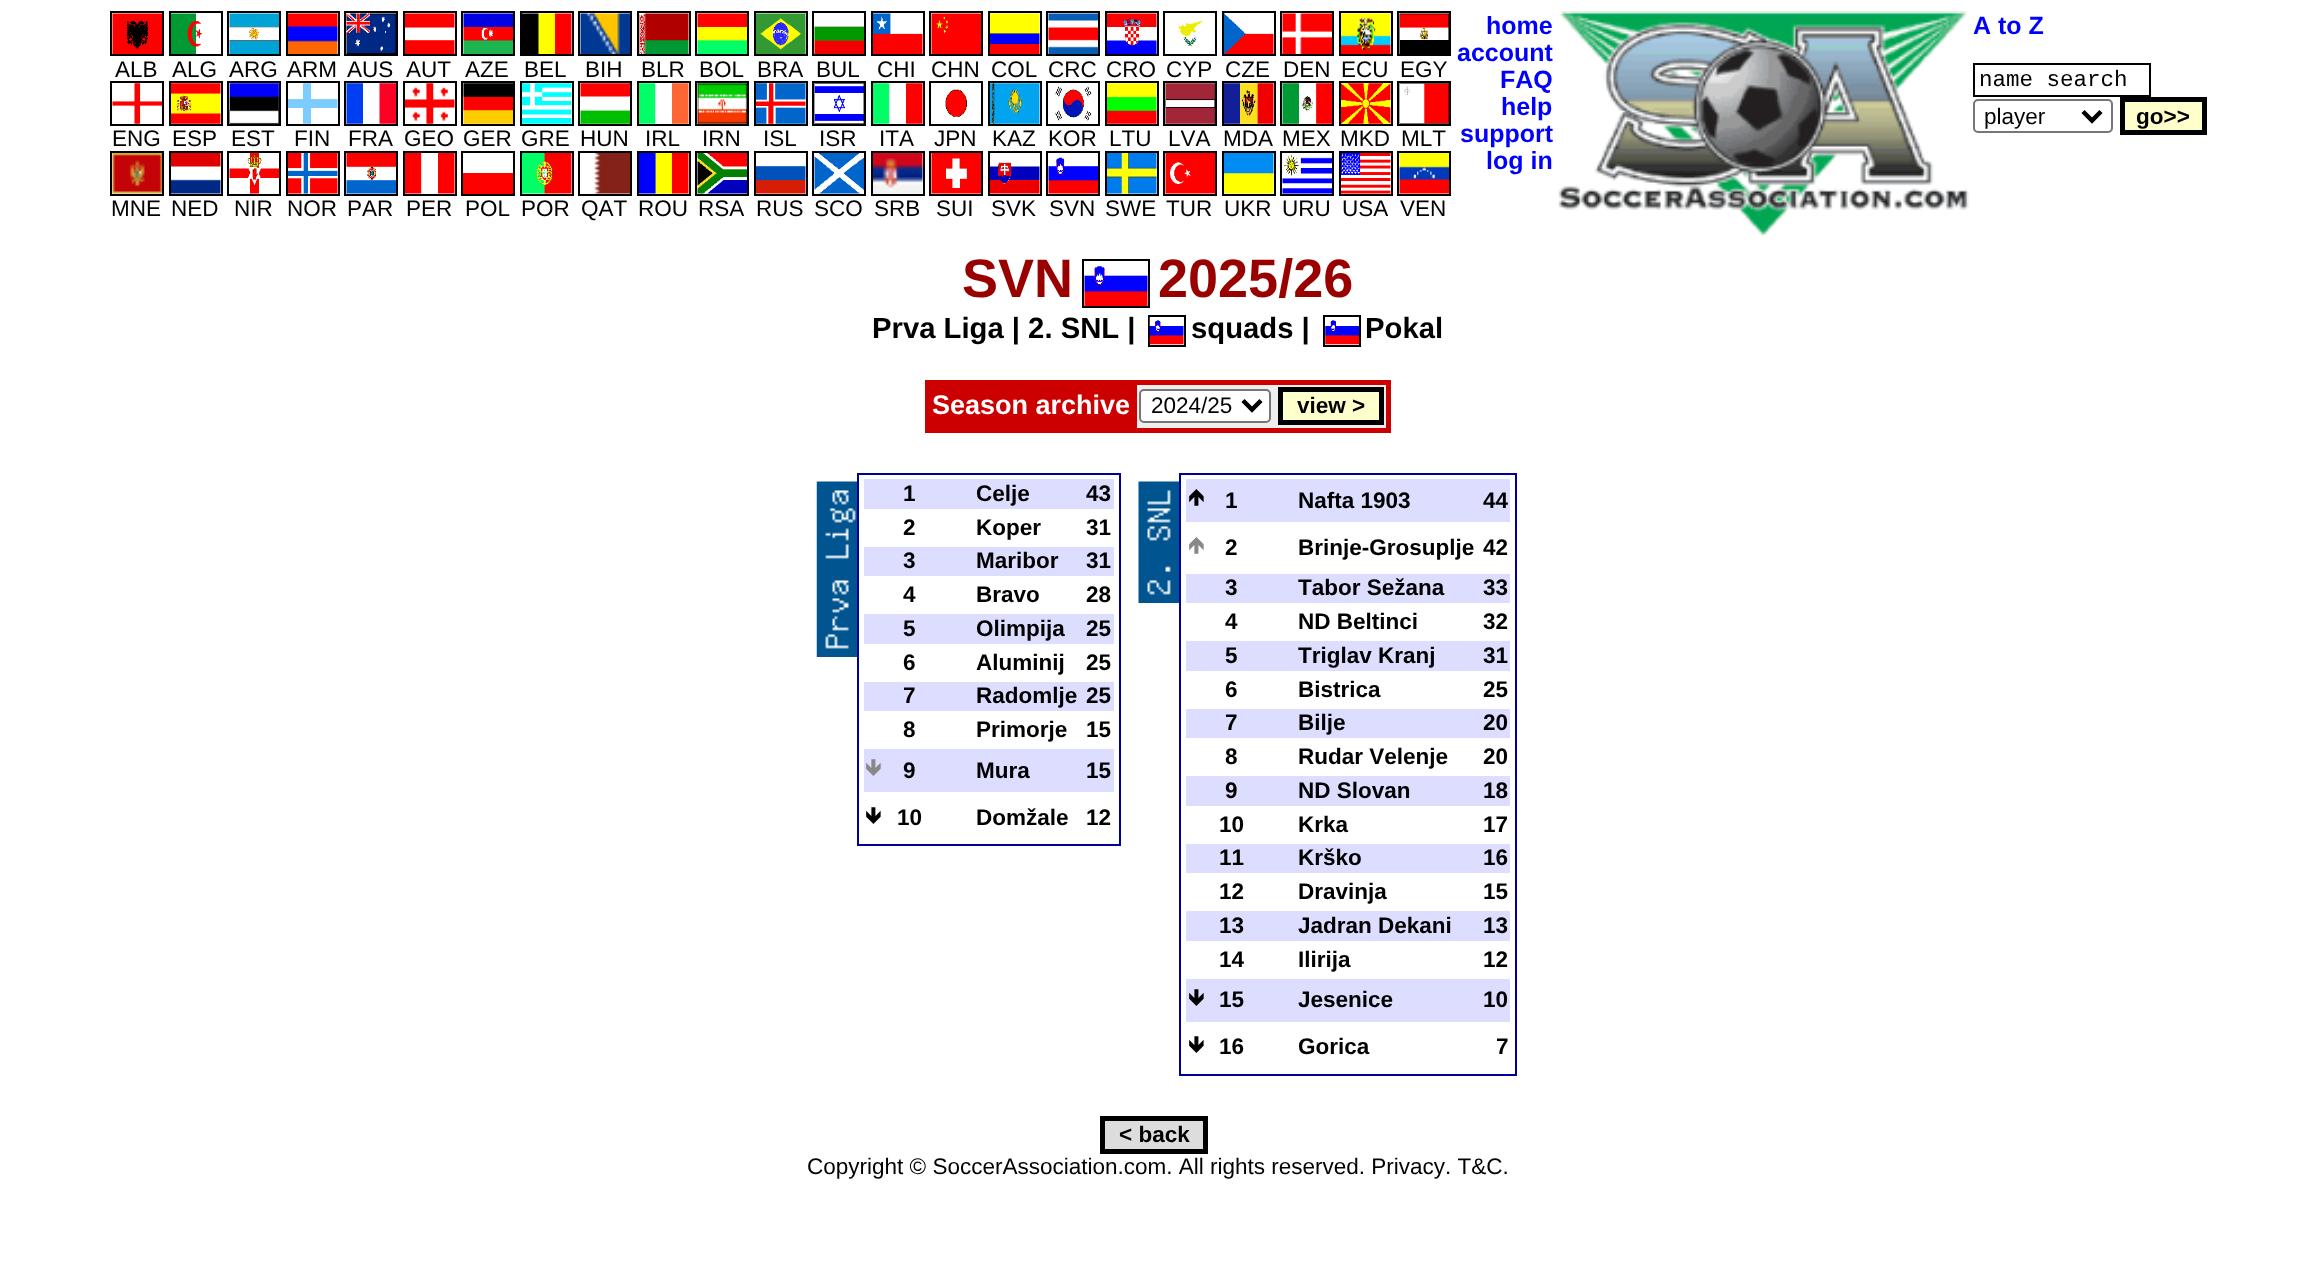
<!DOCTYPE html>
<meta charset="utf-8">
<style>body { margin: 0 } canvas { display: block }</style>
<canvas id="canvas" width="2314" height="1286"></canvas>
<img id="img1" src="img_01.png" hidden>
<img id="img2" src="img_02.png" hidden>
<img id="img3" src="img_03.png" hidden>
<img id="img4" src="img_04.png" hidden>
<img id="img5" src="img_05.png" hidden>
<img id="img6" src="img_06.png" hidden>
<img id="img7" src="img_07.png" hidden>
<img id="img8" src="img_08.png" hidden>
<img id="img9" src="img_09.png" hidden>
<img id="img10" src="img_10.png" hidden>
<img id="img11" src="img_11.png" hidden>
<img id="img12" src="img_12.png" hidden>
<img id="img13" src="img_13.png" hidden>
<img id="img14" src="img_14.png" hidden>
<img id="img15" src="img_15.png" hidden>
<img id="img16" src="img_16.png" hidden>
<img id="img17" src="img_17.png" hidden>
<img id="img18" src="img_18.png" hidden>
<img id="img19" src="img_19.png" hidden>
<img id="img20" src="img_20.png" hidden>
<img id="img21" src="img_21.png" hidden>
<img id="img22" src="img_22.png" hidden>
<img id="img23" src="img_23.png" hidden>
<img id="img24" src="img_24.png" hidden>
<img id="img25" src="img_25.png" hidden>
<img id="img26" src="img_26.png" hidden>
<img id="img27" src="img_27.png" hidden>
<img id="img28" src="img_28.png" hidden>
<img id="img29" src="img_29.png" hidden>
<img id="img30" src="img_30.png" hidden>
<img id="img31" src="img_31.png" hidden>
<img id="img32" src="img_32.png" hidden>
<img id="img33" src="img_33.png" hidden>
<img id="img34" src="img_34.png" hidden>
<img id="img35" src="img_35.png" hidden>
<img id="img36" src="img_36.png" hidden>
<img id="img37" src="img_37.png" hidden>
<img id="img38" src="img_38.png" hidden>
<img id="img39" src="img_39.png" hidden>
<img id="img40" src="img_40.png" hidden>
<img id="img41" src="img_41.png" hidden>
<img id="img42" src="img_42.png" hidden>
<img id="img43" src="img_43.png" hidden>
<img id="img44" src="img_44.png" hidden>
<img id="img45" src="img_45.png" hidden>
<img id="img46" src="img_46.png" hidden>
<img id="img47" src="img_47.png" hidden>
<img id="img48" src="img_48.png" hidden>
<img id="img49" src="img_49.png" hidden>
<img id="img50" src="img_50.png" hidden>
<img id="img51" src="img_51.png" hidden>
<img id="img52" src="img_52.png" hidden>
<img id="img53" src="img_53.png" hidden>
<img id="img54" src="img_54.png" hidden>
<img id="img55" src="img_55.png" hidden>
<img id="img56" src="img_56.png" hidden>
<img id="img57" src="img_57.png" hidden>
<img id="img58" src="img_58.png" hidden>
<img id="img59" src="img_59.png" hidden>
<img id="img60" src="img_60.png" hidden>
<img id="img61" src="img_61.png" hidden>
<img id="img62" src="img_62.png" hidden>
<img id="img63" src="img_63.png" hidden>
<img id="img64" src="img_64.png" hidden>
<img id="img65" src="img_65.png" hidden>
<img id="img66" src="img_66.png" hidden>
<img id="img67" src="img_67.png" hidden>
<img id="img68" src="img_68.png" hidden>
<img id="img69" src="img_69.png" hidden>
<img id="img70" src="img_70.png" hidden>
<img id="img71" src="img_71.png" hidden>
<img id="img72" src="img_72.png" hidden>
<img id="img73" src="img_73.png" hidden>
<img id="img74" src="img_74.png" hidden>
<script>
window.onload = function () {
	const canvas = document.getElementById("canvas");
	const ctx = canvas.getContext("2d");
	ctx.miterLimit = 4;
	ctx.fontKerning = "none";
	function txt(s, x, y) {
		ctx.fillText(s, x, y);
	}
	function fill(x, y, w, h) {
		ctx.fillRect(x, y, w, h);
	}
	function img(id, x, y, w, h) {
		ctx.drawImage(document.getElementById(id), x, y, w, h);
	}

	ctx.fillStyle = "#FFFFFF";
	fill(0, 0, 2314, 1286);
	ctx.strokeStyle = "#000000";
	ctx.lineWidth = 2;
	ctx.strokeRect(111, 12, 52, 43);
	img("img1", 112, 13, 50, 41);
	ctx.strokeRect(170, 12, 52, 43);
	img("img2", 171, 13, 32, 41);
	ctx.strokeRect(228, 12, 52, 43);
	img("img3", 229, 13, 50, 41);
	ctx.strokeRect(287, 12, 52, 43);
	img("img4", 288, 13, 50, 41);
	ctx.strokeRect(345, 12, 52, 43);
	img("img5", 346, 13, 50, 41);
	ctx.strokeRect(404, 12, 52, 43);
	img("img6", 405, 13, 50, 41);
	ctx.strokeRect(462, 12, 52, 43);
	img("img7", 463, 13, 50, 41);
	ctx.strokeRect(521, 12, 52, 43);
	img("img8", 522, 13, 50, 41);
	ctx.strokeRect(579, 12, 52, 43);
	img("img9", 580, 13, 50, 41);
	ctx.strokeRect(638, 12, 52, 43);
	img("img10", 639, 13, 50, 41);
	ctx.strokeRect(696, 12, 52, 43);
	img("img11", 697, 13, 50, 41);
	ctx.strokeRect(755, 12, 52, 43);
	img("img12", 756, 13, 50, 41);
	ctx.strokeRect(813, 12, 52, 43);
	img("img13", 814, 26, 50, 28);
	ctx.strokeRect(872, 12, 52, 43);
	img("img14", 873, 13, 50, 41);
	ctx.strokeRect(930, 12, 52, 43);
	img("img15", 931, 13, 50, 41);
	ctx.strokeRect(989, 12, 52, 43);
	img("img16", 990, 13, 50, 41);
	ctx.strokeRect(1047, 12, 52, 43);
	img("img17", 1048, 13, 50, 41);
	ctx.strokeRect(1106, 12, 52, 43);
	img("img18", 1107, 13, 50, 41);
	ctx.strokeRect(1164, 12, 52, 43);
	img("img19", 1179, 20, 24, 27);
	ctx.strokeRect(1223, 12, 52, 43);
	img("img20", 1224, 13, 50, 41);
	ctx.strokeRect(1281, 12, 52, 43);
	img("img21", 1282, 13, 50, 41);
	ctx.strokeRect(1340, 12, 52, 43);
	img("img22", 1341, 13, 50, 41);
	ctx.strokeRect(1398, 12, 52, 43);
	img("img23", 1399, 13, 50, 41);
	ctx.strokeRect(111, 82, 52, 43);
	img("img24", 112, 83, 50, 41);
	ctx.strokeRect(170, 82, 52, 43);
	img("img25", 171, 83, 50, 41);
	ctx.strokeRect(228, 82, 52, 43);
	img("img26", 229, 83, 50, 41);
	ctx.strokeRect(287, 82, 52, 43);
	img("img27", 288, 83, 50, 41);
	ctx.strokeRect(345, 82, 52, 43);
	img("img28", 346, 83, 50, 41);
	ctx.strokeRect(404, 82, 52, 43);
	img("img29", 405, 83, 50, 41);
	ctx.strokeRect(462, 82, 52, 43);
	img("img30", 463, 83, 50, 41);
	ctx.strokeRect(521, 82, 52, 43);
	img("img31", 522, 83, 50, 41);
	ctx.strokeRect(579, 82, 52, 43);
	img("img32", 580, 83, 50, 41);
	ctx.strokeRect(638, 82, 52, 43);
	img("img33", 639, 83, 50, 41);
	ctx.strokeRect(696, 82, 52, 43);
	img("img34", 697, 83, 50, 41);
	ctx.strokeRect(755, 82, 52, 43);
	img("img35", 756, 83, 50, 41);
	ctx.strokeRect(813, 82, 52, 43);
	img("img36", 814, 83, 50, 41);
	ctx.strokeRect(872, 82, 52, 43);
	img("img37", 873, 83, 50, 41);
	ctx.strokeRect(930, 82, 52, 43);
	img("img38", 945, 89, 22, 28);
	ctx.strokeRect(989, 82, 52, 43);
	img("img39", 990, 83, 50, 41);
	ctx.strokeRect(1047, 82, 52, 43);
	img("img40", 1055, 86, 37, 35);
	ctx.strokeRect(1106, 82, 52, 43);
	img("img41", 1107, 83, 50, 41);
	ctx.strokeRect(1164, 82, 52, 43);
	img("img42", 1165, 83, 50, 41);
	ctx.strokeRect(1223, 82, 52, 43);
	img("img43", 1224, 83, 50, 41);
	ctx.strokeRect(1281, 82, 52, 43);
	img("img44", 1282, 83, 50, 41);
	ctx.strokeRect(1340, 82, 52, 43);
	img("img45", 1341, 83, 50, 41);
	ctx.strokeRect(1398, 82, 52, 43);
	img("img46", 1399, 83, 50, 41);
	ctx.strokeRect(111, 152, 52, 43);
	img("img47", 112, 153, 50, 41);
	ctx.strokeRect(170, 152, 52, 43);
	img("img48", 171, 153, 50, 41);
	ctx.strokeRect(228, 152, 52, 43);
	img("img49", 229, 153, 50, 41);
	ctx.strokeRect(287, 152, 52, 43);
	img("img50", 288, 153, 50, 41);
	ctx.strokeRect(345, 152, 52, 43);
	img("img51", 346, 153, 50, 41);
	ctx.strokeRect(404, 152, 52, 43);
	img("img52", 405, 153, 50, 41);
	ctx.strokeRect(462, 152, 52, 43);
	ctx.fillStyle = "#FF0000";
	fill(463, 173, 50, 21);
	ctx.strokeRect(521, 152, 52, 43);
	img("img53", 522, 153, 50, 41);
	ctx.strokeRect(579, 152, 52, 43);
	img("img54", 593, 153, 37, 41);
	ctx.strokeRect(638, 152, 52, 43);
	img("img55", 639, 153, 50, 41);
	ctx.strokeRect(696, 152, 52, 43);
	img("img56", 697, 153, 50, 41);
	ctx.strokeRect(755, 152, 52, 43);
	img("img57", 756, 166, 50, 28);
	ctx.strokeRect(813, 152, 52, 43);
	img("img58", 814, 153, 50, 41);
	ctx.strokeRect(872, 152, 52, 43);
	img("img59", 873, 153, 50, 41);
	ctx.strokeRect(930, 152, 52, 43);
	img("img60", 931, 153, 50, 41);
	ctx.strokeRect(989, 152, 52, 43);
	img("img61", 990, 162, 50, 32);
	ctx.strokeRect(1047, 152, 52, 43);
	img("img62", 1048, 157, 50, 37);
	ctx.strokeRect(1106, 152, 52, 43);
	img("img63", 1107, 153, 50, 41);
	ctx.strokeRect(1164, 152, 52, 43);
	img("img64", 1165, 153, 50, 41);
	ctx.strokeRect(1223, 152, 52, 43);
	img("img65", 1224, 153, 50, 41);
	ctx.strokeRect(1281, 152, 52, 43);
	img("img66", 1282, 154, 50, 40);
	ctx.strokeRect(1340, 152, 52, 43);
	img("img67", 1341, 153, 50, 41);
	ctx.strokeRect(1398, 152, 52, 43);
	img("img68", 1399, 153, 50, 41);
	img("img69", 1558, 11, 411, 225);
	ctx.strokeRect(1974, 64, 176, 32);
	ctx.beginPath();
	ctx.roundRect(1974, 100, 138, 32, 4);
	ctx.strokeStyle = "#767676";
	ctx.stroke();
	ctx.beginPath();
	ctx.moveTo(2083, 111.5);
	ctx.lineTo(2092, 120.5);
	ctx.lineTo(2101, 111.5);
	ctx.strokeStyle = "#000000";
	ctx.lineWidth = 4.5;
	ctx.stroke();
	ctx.fillStyle = "#FFFFCC";
	ctx.beginPath();
	ctx.rect(2122.5, 99.5, 82, 33);
	ctx.fill();
	ctx.lineWidth = 5;
	ctx.stroke();
	ctx.lineWidth = 2;
	ctx.strokeRect(1083, 260, 66, 47);
	img("img70", 1084, 266, 64, 40);
	ctx.strokeRect(1149, 316, 36, 30);
	ctx.strokeRect(1324, 316, 36, 30);
	img("img71", 1149, 317, 35, 28);
	img("img72", 1325, 320, 34, 25);
	ctx.fillStyle = "#CC0000";
	fill(925, 380, 207, 48);
	fill(1132, 380, 259, 5);
	fill(1386, 380, 5, 52);
	fill(1132, 428, 259, 5);
	fill(1132, 380, 5, 52);
	fill(925, 428, 211, 5);
	ctx.fillStyle = "#EEEEEE";
	fill(1137, 385, 249, 43);
	ctx.fillStyle = "#FFFFFF";
	ctx.beginPath();
	ctx.roundRect(1140, 390, 130, 32, 4);
	ctx.fill();
	ctx.strokeStyle = "#767676";
	ctx.stroke();
	ctx.beginPath();
	ctx.moveTo(1243, 400.5);
	ctx.lineTo(1252, 409.5);
	ctx.lineTo(1261, 400.5);
	ctx.strokeStyle = "#000000";
	ctx.lineWidth = 4.5;
	ctx.stroke();
	ctx.fillStyle = "#FFFFCC";
	ctx.beginPath();
	ctx.rect(1280.5, 389.5, 101, 33);
	ctx.fill();
	ctx.lineWidth = 5;
	ctx.stroke();
	img("img73", 816, 481, 41, 176);
	ctx.strokeStyle = "#000099";
	ctx.lineWidth = 2;
	ctx.strokeRect(858, 474, 262, 371);
	ctx.fillStyle = "#DDDDFF";
	fill(864, 479, 250, 30);
	fill(864, 547, 250, 29);
	fill(864, 614, 250, 30);
	fill(864, 682, 250, 29);
	fill(864, 749, 250, 43);
	img("img74", 1138, 481, 41, 122);
	ctx.strokeRect(1180, 474, 336, 601);
	fill(1186, 479, 324, 43);
	fill(1186, 574, 324, 29);
	fill(1186, 641, 324, 30);
	fill(1186, 709, 324, 29);
	fill(1186, 776, 324, 30);
	fill(1186, 844, 324, 29);
	fill(1186, 911, 324, 30);
	fill(1186, 979, 324, 43);
	ctx.fillStyle = "#DDDDDD";
	ctx.beginPath();
	ctx.rect(1102.5, 1118.5, 103, 33);
	ctx.fill();
	ctx.strokeStyle = "#000000";
	ctx.lineWidth = 5;
	ctx.stroke();
	ctx.font = "22.5px Liberation Sans";
	ctx.fillStyle = "#000000";
	txt("ALB", 115, 77);
	txt("ALG", 172, 77);
	txt("ARG", 229, 77);
	txt("ARM", 287, 77);
	txt("AUS", 347, 77);
	txt("AUT", 406, 77);
	txt("AZE", 465, 77);
	txt("BEL", 524, 77);
	txt("BIH", 585, 77);
	txt("BLR", 641, 77);
	txt("BOL", 699, 77);
	txt("BRA", 757, 77);
	txt("BUL", 816, 77);
	txt("CHI", 877, 77);
	txt("CHN", 931, 77);
	txt("COL", 991, 77);
	txt("CRC", 1048, 77);
	txt("CRO", 1106, 77);
	txt("CYP", 1166, 77);
	txt("CZE", 1225, 77);
	txt("DEN", 1283, 77);
	txt("ECU", 1341, 77);
	txt("EGY", 1400, 77);
	txt("ENG", 112, 146);
	txt("ESP", 172, 146);
	txt("EST", 231, 146);
	txt("FIN", 294, 146);
	txt("FRA", 348, 146);
	txt("GEO", 404, 146);
	txt("GER", 463, 146);
	txt("GRE", 521, 146);
	txt("HUN", 580, 146);
	txt("IRL", 645, 146);
	txt("IRN", 702, 146);
	txt("ISL", 763, 146);
	txt("ISR", 819, 146);
	txt("ITA", 879, 146);
	txt("JPN", 934, 146);
	txt("KAZ", 992, 146);
	txt("KOR", 1048, 146);
	txt("LTU", 1109, 146);
	txt("LVA", 1168, 146);
	txt("MDA", 1223, 146);
	txt("MEX", 1282, 146);
	txt("MKD", 1340, 146);
	txt("MLT", 1401, 146);
	txt("MNE", 111, 216);
	txt("NED", 171, 216);
	txt("NIR", 234, 216);
	txt("NOR", 287, 216);
	txt("PAR", 347, 216);
	txt("PER", 406, 216);
	txt("POL", 465, 216);
	txt("POR", 521, 216);
	txt("QAT", 581, 216);
	txt("ROU", 638, 216);
	txt("RSA", 698, 216);
	txt("RUS", 756, 216);
	txt("SCO", 814, 216);
	txt("SRB", 874, 216);
	txt("SUI", 936, 216);
	txt("SVK", 991, 216);
	txt("SVN", 1049, 216);
	txt("SWE", 1105, 216);
	txt("TUR", 1166, 216);
	txt("UKR", 1224, 216);
	txt("URU", 1282, 216);
	txt("USA", 1342, 216);
	txt("VEN", 1400, 216);
	ctx.font = "bold 25px Liberation Sans";
	ctx.fillStyle = "#0000FF";
	txt("home", 1486, 34);
	txt("account", 1457, 61);
	txt("FAQ", 1500, 88);
	txt("help", 1501, 115);
	txt("support", 1460, 142);
	txt("log in", 1486, 169);
	txt("A to Z", 1973, 34);
	ctx.font = "22.5px Liberation Mono";
	ctx.fillStyle = "#000000";
	txt("name search", 1979, 86);
	ctx.font = "22.5px Liberation Sans";
	txt("player", 1984, 124);
	ctx.font = "bold 22.5px Liberation Sans";
	txt("go>>", 2136, 124);
	ctx.font = "bold 54px Liberation Sans";
	ctx.fillStyle = "#990000";
	txt("SVN", 962, 297);
	txt("2025/26", 1158, 297);
	ctx.font = "bold 29.25px Liberation Sans";
	ctx.fillStyle = "#000000";
	txt("Prva Liga | 2. SNL |", 872, 338);
	txt("squads |", 1191, 338);
	txt("Pokal", 1365, 338);
	ctx.font = "bold 27px Liberation Sans";
	ctx.fillStyle = "#FFFFFF";
	txt("Season archive", 932, 414);
	ctx.font = "22.5px Liberation Sans";
	ctx.fillStyle = "#000000";
	txt("2024/25", 1151, 413);
	ctx.font = "bold 22.5px Liberation Sans";
	txt("view >", 1297, 413);
	txt("1", 903, 501);
	txt("Celje", 976, 501);
	txt("43", 1086, 501);
	txt("2", 903, 535);
	txt("Koper", 976, 535);
	txt("31", 1086, 535);
	txt("3", 903, 568);
	txt("Maribor", 976, 568);
	txt("31", 1086, 568);
	txt("4", 903, 602);
	txt("Bravo", 976, 602);
	txt("28", 1086, 602);
	txt("5", 903, 636);
	txt("Olimpija", 976, 636);
	txt("25", 1086, 636);
	txt("6", 903, 670);
	txt("Aluminij", 976, 670);
	txt("25", 1086, 670);
	txt("7", 903, 703);
	txt("Radomlje", 976, 703);
	txt("25", 1086, 703);
	txt("8", 903, 737);
	txt("Primorje", 976, 737);
	txt("15", 1086, 737);
	ctx.font = "bold 22.5px 'Noto Sans Symbols 2'";
	ctx.fillStyle = "#888888";
	txt("🡻", 865, 775);
	ctx.font = "bold 22.5px Liberation Sans";
	ctx.fillStyle = "#000000";
	txt("9", 903, 778);
	txt("Mura", 976, 778);
	txt("15", 1086, 778);
	ctx.font = "bold 22.5px 'Noto Sans Symbols 2'";
	txt("🡻", 865, 823);
	ctx.font = "bold 22.5px Liberation Sans";
	txt("10", 897, 825);
	txt("Domžale", 976, 825);
	txt("12", 1086, 825);
	ctx.font = "bold 22.5px 'Noto Sans Symbols 2'";
	txt("🡹", 1188, 505);
	ctx.font = "bold 22.5px Liberation Sans";
	txt("1", 1225, 508);
	txt("Nafta 1903", 1298, 508);
	txt("44", 1483, 508);
	ctx.font = "bold 22.5px 'Noto Sans Symbols 2'";
	ctx.fillStyle = "#888888";
	txt("🡹", 1188, 553);
	ctx.font = "bold 22.5px Liberation Sans";
	ctx.fillStyle = "#000000";
	txt("2", 1225, 555);
	txt("Brinje-Grosuplje", 1298, 555);
	txt("42", 1483, 555);
	txt("3", 1225, 595);
	txt("Tabor Sežana", 1298, 595);
	txt("33", 1483, 595);
	txt("4", 1225, 629);
	txt("ND Beltinci", 1298, 629);
	txt("32", 1483, 629);
	txt("5", 1225, 663);
	txt("Triglav Kranj", 1298, 663);
	txt("31", 1483, 663);
	txt("6", 1225, 697);
	txt("Bistrica", 1298, 697);
	txt("25", 1483, 697);
	txt("7", 1225, 730);
	txt("Bilje", 1298, 730);
	txt("20", 1483, 730);
	txt("8", 1225, 764);
	txt("Rudar Velenje", 1298, 764);
	txt("20", 1483, 764);
	txt("9", 1225, 798);
	txt("ND Slovan", 1298, 798);
	txt("18", 1483, 798);
	txt("10", 1219, 832);
	txt("Krka", 1298, 832);
	txt("17", 1483, 832);
	txt("11", 1219, 865);
	txt("Krško", 1298, 865);
	txt("16", 1483, 865);
	txt("12", 1219, 899);
	txt("Dravinja", 1298, 899);
	txt("15", 1483, 899);
	txt("13", 1219, 933);
	txt("Jadran Dekani", 1298, 933);
	txt("13", 1483, 933);
	txt("14", 1219, 967);
	txt("Ilirija", 1298, 967);
	txt("12", 1483, 967);
	ctx.font = "bold 22.5px 'Noto Sans Symbols 2'";
	txt("🡻", 1188, 1005);
	ctx.font = "bold 22.5px Liberation Sans";
	txt("15", 1219, 1007);
	txt("Jesenice", 1298, 1007);
	txt("10", 1483, 1007);
	ctx.font = "bold 22.5px 'Noto Sans Symbols 2'";
	txt("🡻", 1188, 1052);
	ctx.font = "bold 22.5px Liberation Sans";
	txt("16", 1219, 1054);
	txt("Gorica", 1298, 1054);
	txt("7", 1496, 1054);
	txt("< back", 1119, 1142);
	ctx.font = "22.5px Liberation Sans";
	txt("Copyright © SoccerAssociation.com. All rights reserved. Privacy. T&C.", 807, 1174);
};
</script>
